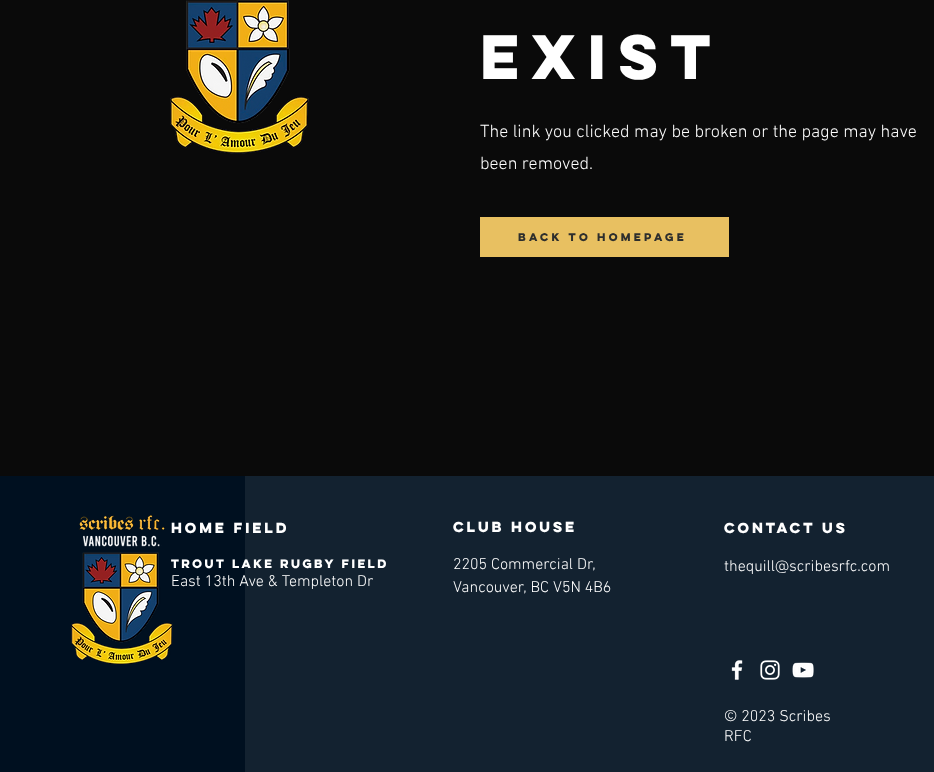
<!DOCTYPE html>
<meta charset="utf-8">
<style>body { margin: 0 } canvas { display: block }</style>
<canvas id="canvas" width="934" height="772"></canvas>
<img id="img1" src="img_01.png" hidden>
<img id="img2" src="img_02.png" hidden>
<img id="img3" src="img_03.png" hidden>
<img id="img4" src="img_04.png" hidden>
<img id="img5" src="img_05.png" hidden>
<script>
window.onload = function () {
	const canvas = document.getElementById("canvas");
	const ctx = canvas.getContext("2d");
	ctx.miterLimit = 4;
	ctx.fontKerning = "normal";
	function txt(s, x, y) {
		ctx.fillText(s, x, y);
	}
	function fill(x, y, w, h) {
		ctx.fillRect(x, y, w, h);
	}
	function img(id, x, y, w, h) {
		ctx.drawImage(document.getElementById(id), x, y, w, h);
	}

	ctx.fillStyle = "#0A0A0A";
	fill(0, 0, 934, 772);
	img("img1", 170, 0, 139, 154);
	ctx.fillStyle = "#E8C061";
	fill(480, 217, 249, 40);
	ctx.fillStyle = "#001020";
	fill(0, 476, 245, 296);
	img("img2", 71, 515, 102, 150);
	ctx.fillStyle = "#132230";
	fill(245, 476, 689, 296);
	img("img3", 731, 660, 12, 20);
	img("img4", 760, 660, 20, 20);
	img("img5", 792, 662, 22, 16);
	ctx.font = "bold 56px 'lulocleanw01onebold'";
	ctx.fillStyle = "#FFFFFF";
	txt("Exist", 480, 79);
	ctx.font = "300 18px 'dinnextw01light'";
	txt("The link you clicked may be broken or the page may have", 480, 137);
	txt("been removed.", 480, 169);
	ctx.letterSpacing = "1px";
	ctx.font = "bold 10px 'lulocleanw01onebold'";
	ctx.fillStyle = "#2D2E2D";
	txt("Back to Homepage", 518, 241);
	ctx.letterSpacing = "0px";
	ctx.font = "bold 13px 'lulocleanw01onebold'";
	ctx.fillStyle = "#FFFFFF";
	txt("Home Field", 171, 533);
	ctx.font = "bold 11px 'lulocleanw01onebold'";
	txt("Trout Lake Rugby Field", 171, 568);
	ctx.font = "300 16px 'dinnextw01light'";
	txt("East 13th Ave & Templeton Dr", 171, 586);
	ctx.font = "bold 13px 'lulocleanw01onebold'";
	txt("Club House", 453, 532);
	ctx.font = "300 16px 'dinnextw01light'";
	txt("2205 Commercial Dr,", 453, 569);
	txt("Vancouver, BC V5N 4B6", 453, 592);
	ctx.font = "bold 13px 'lulocleanw01onebold'";
	txt("contact us", 724, 533);
	ctx.font = "300 16px 'dinnextw01light'";
	txt("thequill@scribesrfc.com", 724, 571);
	txt("© 2023 Scribes", 724, 721);
	txt("RFC", 724, 741);
};
</script>
